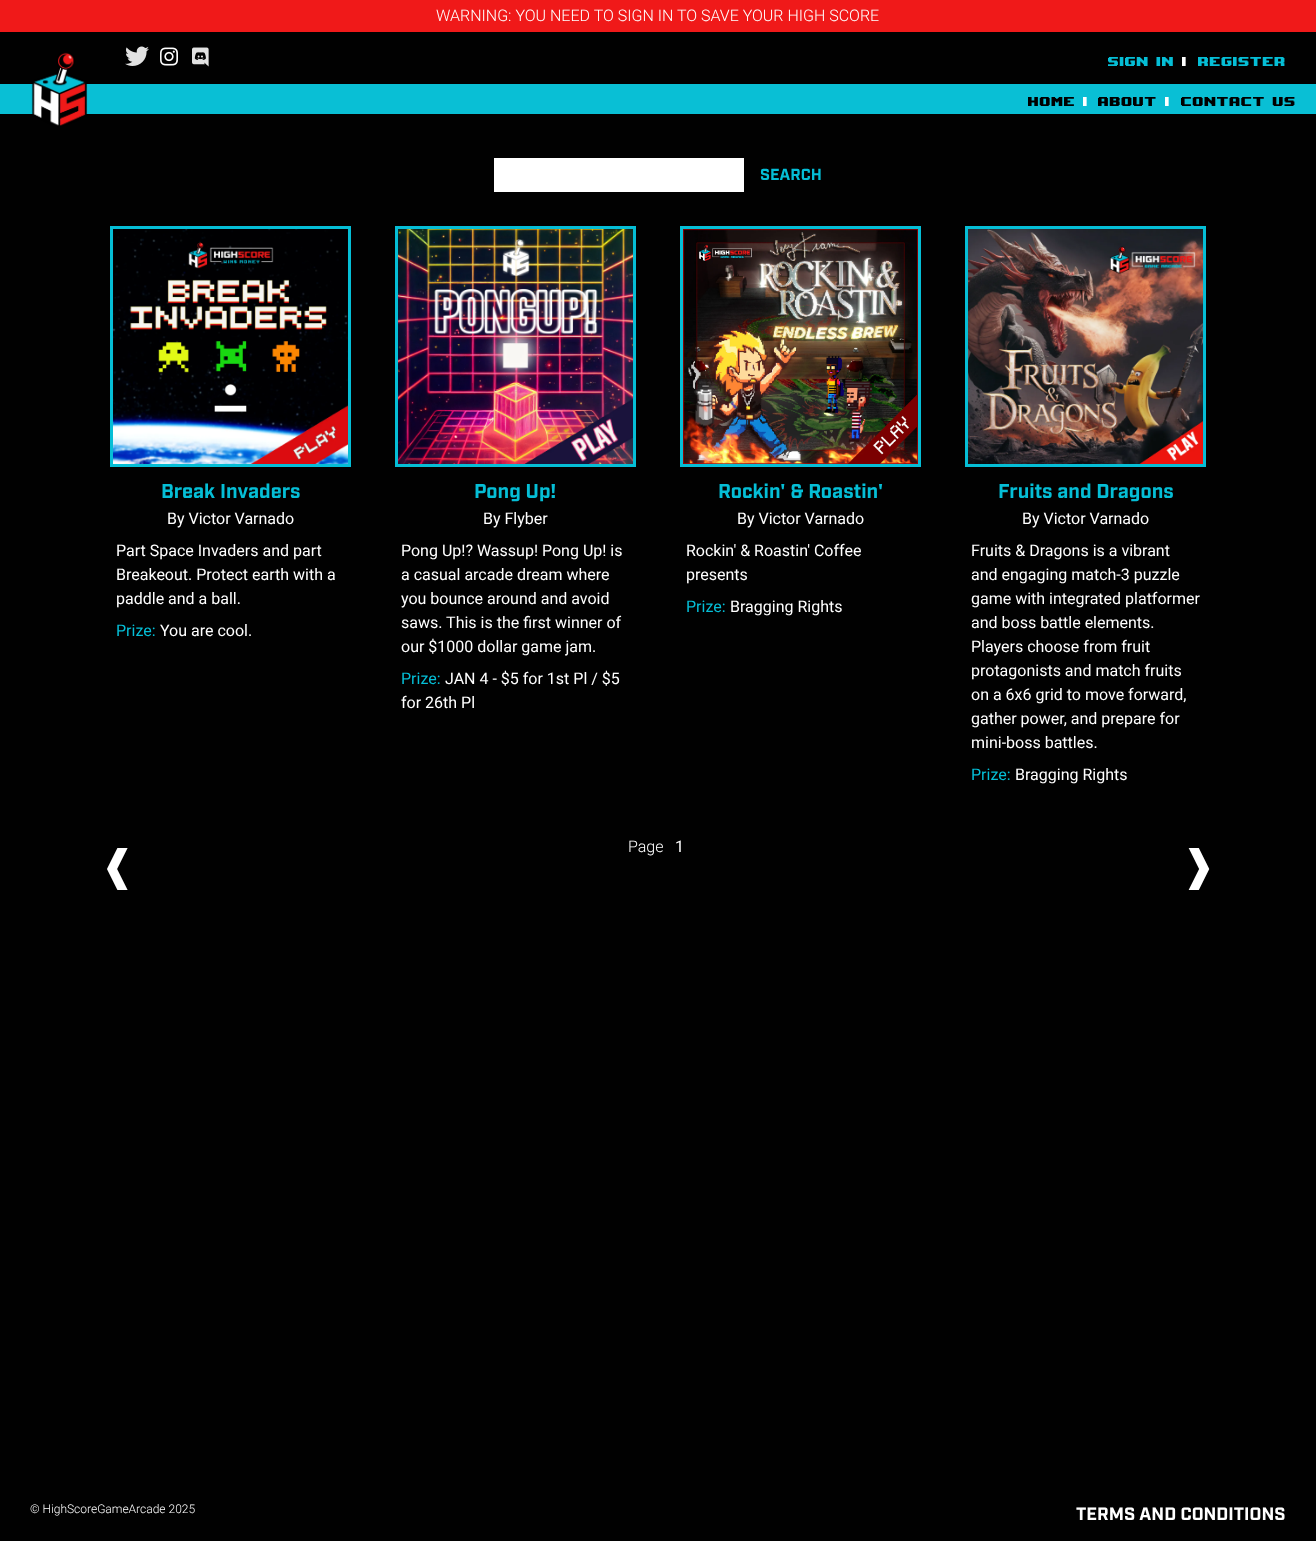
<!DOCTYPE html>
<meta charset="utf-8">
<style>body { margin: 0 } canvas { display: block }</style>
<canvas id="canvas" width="1316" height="1541"></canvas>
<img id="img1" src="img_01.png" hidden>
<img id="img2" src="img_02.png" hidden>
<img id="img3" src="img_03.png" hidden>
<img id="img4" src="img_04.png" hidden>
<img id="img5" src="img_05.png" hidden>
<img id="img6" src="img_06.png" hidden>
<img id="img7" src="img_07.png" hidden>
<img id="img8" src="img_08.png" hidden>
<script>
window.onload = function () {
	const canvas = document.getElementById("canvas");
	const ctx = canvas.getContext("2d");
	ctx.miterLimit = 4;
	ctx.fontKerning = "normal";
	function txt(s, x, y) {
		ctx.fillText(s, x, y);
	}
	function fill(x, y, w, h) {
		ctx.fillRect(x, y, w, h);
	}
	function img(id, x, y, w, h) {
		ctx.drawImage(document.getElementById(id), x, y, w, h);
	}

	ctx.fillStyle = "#010101";
	fill(0, 0, 1316, 1541);
	ctx.fillStyle = "#F01919";
	fill(0, 0, 1316, 32);
	img("img1", 125, 46, 24, 20);
	img("img2", 160, 47, 18, 19);
	img("img3", 192, 47, 17, 20);
	ctx.fillStyle = "#09BFD5";
	fill(0, 84, 1316, 30);
	img("img4", 31, 52, 57, 74);
	ctx.fillStyle = "#FFFFFF";
	fill(494, 158, 250, 34);
	ctx.strokeStyle = "#05BED6";
	ctx.lineWidth = 3;
	ctx.strokeRect(111.5, 227.5, 238, 238);
	img("img5", 113, 229, 235, 235);
	ctx.strokeRect(396.5, 227.5, 238, 238);
	img("img6", 398, 229, 235, 235);
	ctx.strokeRect(681.5, 227.5, 238, 238);
	img("img7", 683, 229, 235, 235);
	ctx.strokeRect(966.5, 227.5, 238, 238);
	img("img8", 968, 229, 235, 235);
	ctx.font = "300 16px Roboto";
	txt("WARNING: YOU NEED TO SIGN IN TO SAVE YOUR HIGH SCORE", 436, 21);
	ctx.font = "600 18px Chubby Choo";
	ctx.fillStyle = "#05BED6";
	txt("SIGN IN", 1108, 66);
	ctx.fillStyle = "#FFFFFF";
	txt("|", 1182, 66);
	ctx.fillStyle = "#05BED6";
	txt("REGISTER", 1198, 66);
	ctx.fillStyle = "#000000";
	txt("HOME", 1028, 106);
	ctx.fillStyle = "#FFFFFF";
	txt("|", 1083, 106);
	ctx.fillStyle = "#000000";
	txt("ABOUT", 1098, 106);
	ctx.fillStyle = "#FFFFFF";
	txt("|", 1165, 106);
	ctx.fillStyle = "#000000";
	txt("CONTACT US", 1181, 106);
	ctx.font = "bold 16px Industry";
	ctx.fillStyle = "#05BED6";
	txt("SEARCH", 760, 180);
	ctx.font = "bold 20px Industry";
	txt("Break Invaders", 161, 498);
	ctx.font = "16px Roboto";
	ctx.fillStyle = "#FFFFFF";
	txt("By Victor Varnado", 167, 524);
	txt("Part Space Invaders and part", 116, 556);
	txt("Breakeout. Protect earth with a", 116, 580);
	txt("paddle and a ball.", 116, 604);
	ctx.fillStyle = "#05BED6";
	txt("Prize:", 116, 636);
	ctx.fillStyle = "#FFFFFF";
	txt("You are cool.", 160, 636);
	ctx.font = "bold 20px Industry";
	ctx.fillStyle = "#05BED6";
	txt("Pong Up!", 474, 498);
	ctx.font = "16px Roboto";
	ctx.fillStyle = "#FFFFFF";
	txt("By Flyber", 483, 524);
	txt("Pong Up!? Wassup! Pong Up! is", 401, 556);
	txt("a casual arcade dream where", 401, 580);
	txt("you bounce around and avoid", 401, 604);
	txt("saws. This is the first winner of", 401, 628);
	txt("our $1000 dollar game jam.", 401, 652);
	ctx.fillStyle = "#05BED6";
	txt("Prize:", 401, 684);
	ctx.fillStyle = "#FFFFFF";
	txt("JAN 4 - $5 for 1st Pl / $5", 445, 684);
	txt("for 26th Pl", 401, 708);
	ctx.font = "bold 20px Industry";
	ctx.fillStyle = "#05BED6";
	txt("Rockin' & Roastin'", 718, 498);
	ctx.font = "16px Roboto";
	ctx.fillStyle = "#FFFFFF";
	txt("By Victor Varnado", 737, 524);
	txt("Rockin' & Roastin' Coffee", 686, 556);
	txt("presents", 686, 580);
	ctx.fillStyle = "#05BED6";
	txt("Prize:", 686, 612);
	ctx.fillStyle = "#FFFFFF";
	txt("Bragging Rights", 730, 612);
	ctx.font = "bold 20px Industry";
	ctx.fillStyle = "#05BED6";
	txt("Fruits and Dragons", 998, 498);
	ctx.font = "16px Roboto";
	ctx.fillStyle = "#FFFFFF";
	txt("By Victor Varnado", 1022, 524);
	txt("Fruits & Dragons is a vibrant", 971, 556);
	txt("and engaging match-3 puzzle", 971, 580);
	txt("game with integrated platformer", 971, 604);
	txt("and boss battle elements.", 971, 628);
	txt("Players choose from fruit", 971, 652);
	txt("protagonists and match fruits", 971, 676);
	txt("on a 6x6 grid to move forward,", 971, 700);
	txt("gather power, and prepare for", 971, 724);
	txt("mini-boss battles.", 971, 748);
	ctx.fillStyle = "#05BED6";
	txt("Prize:", 971, 780);
	ctx.fillStyle = "#FFFFFF";
	txt("Bragging Rights", 1015, 780);
	ctx.font = "42px DejaVu Sans";
	txt("❰", 100, 880);
	ctx.font = "300 16px Roboto";
	txt("Page", 628, 852);
	ctx.font = "16px Roboto";
	txt("1", 675, 852);
	ctx.font = "42px DejaVu Sans";
	txt("❱", 1181, 880);
	ctx.font = "300 12px Roboto";
	txt("© HighScoreGameArcade 2025", 30, 1513);
	ctx.font = "bold 18px Industry";
	txt("TERMS AND CONDITIONS", 1076, 1520);
};
</script>
